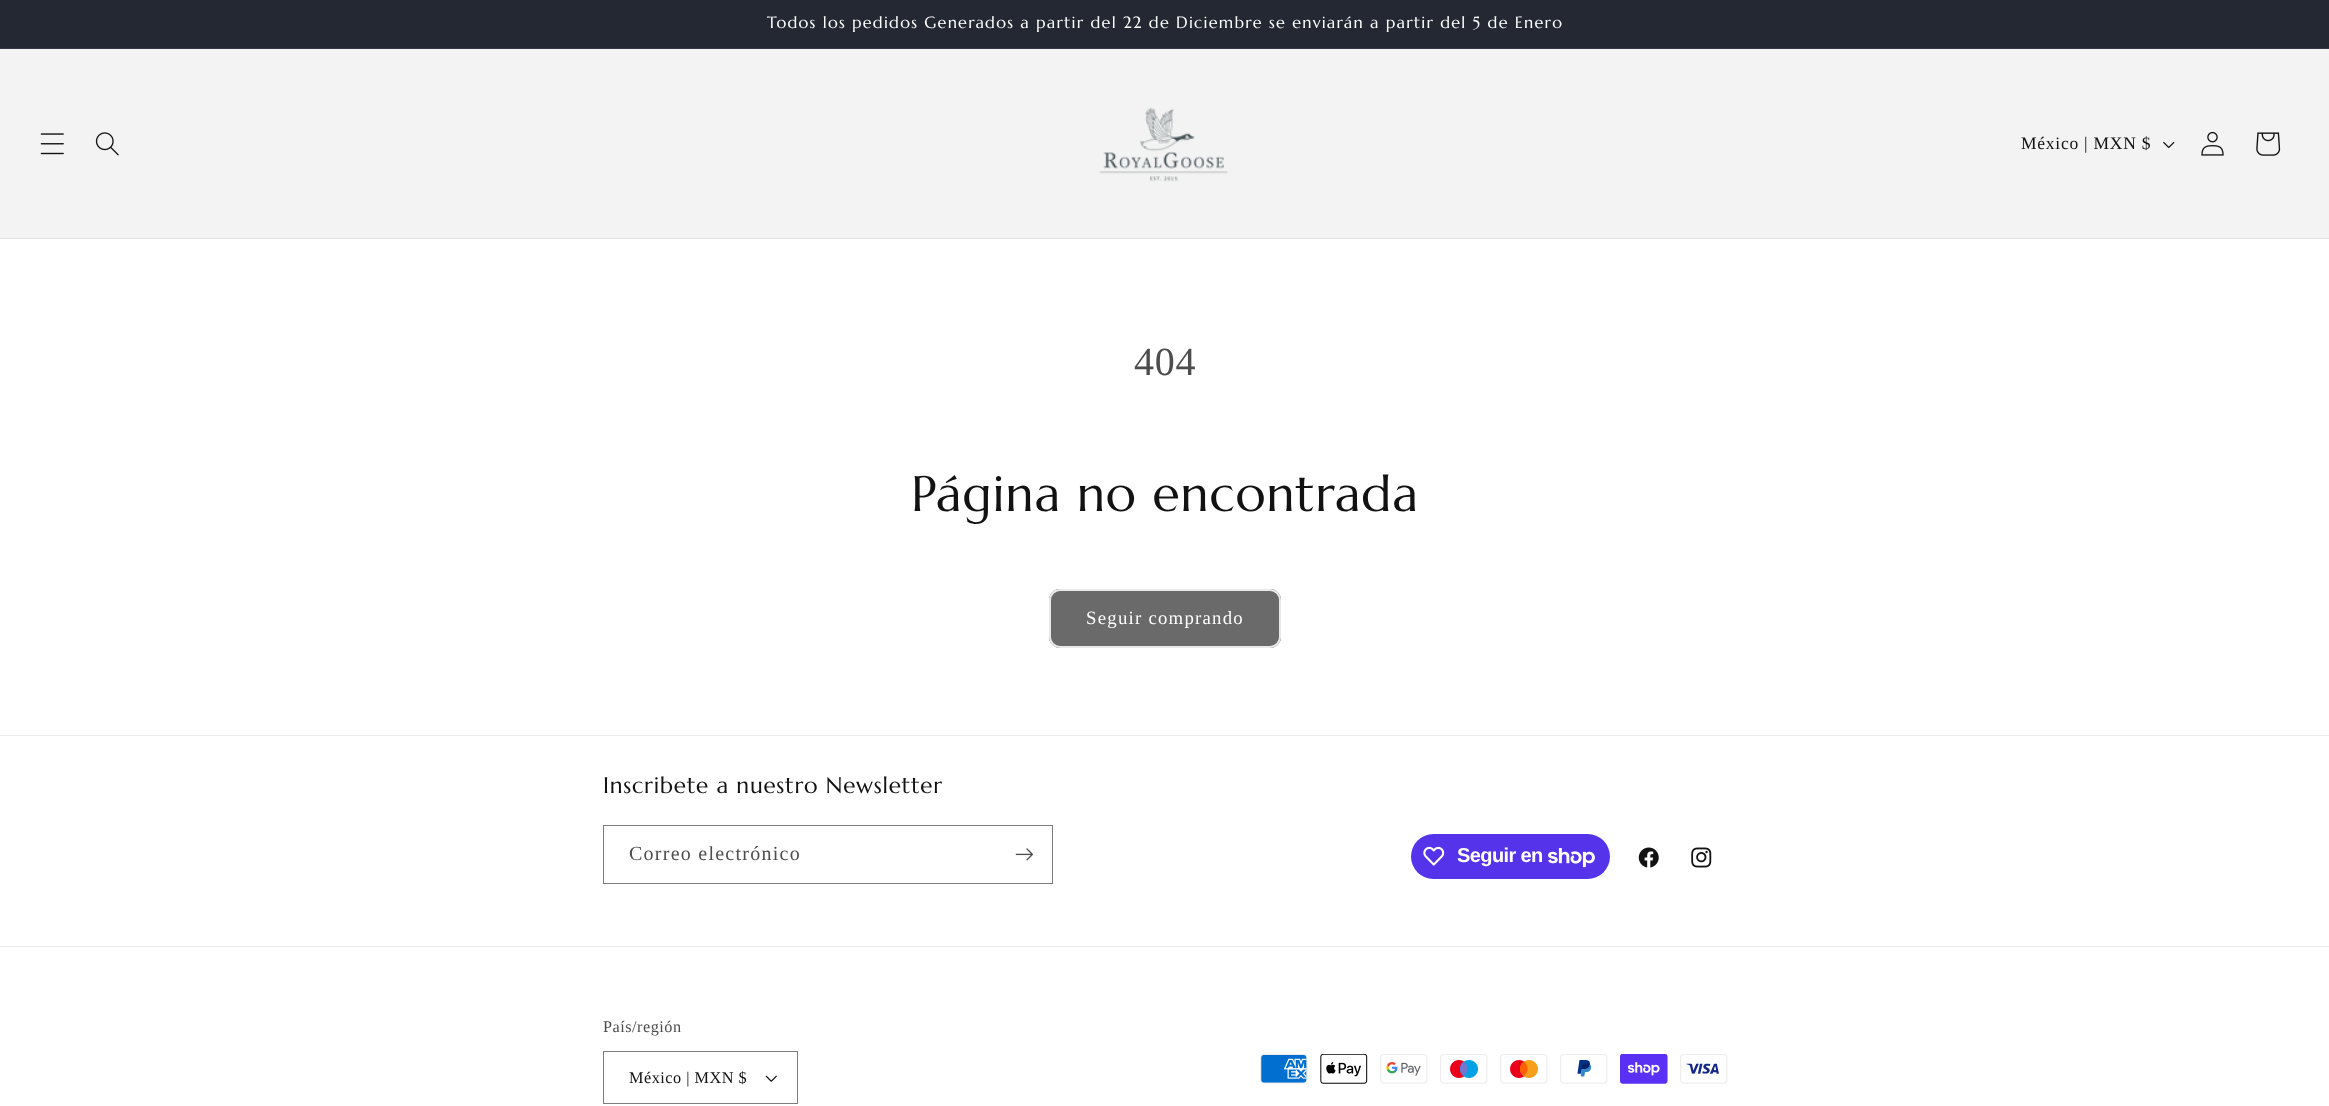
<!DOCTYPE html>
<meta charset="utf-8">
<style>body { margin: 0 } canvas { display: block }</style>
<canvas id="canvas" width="2329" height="1106"></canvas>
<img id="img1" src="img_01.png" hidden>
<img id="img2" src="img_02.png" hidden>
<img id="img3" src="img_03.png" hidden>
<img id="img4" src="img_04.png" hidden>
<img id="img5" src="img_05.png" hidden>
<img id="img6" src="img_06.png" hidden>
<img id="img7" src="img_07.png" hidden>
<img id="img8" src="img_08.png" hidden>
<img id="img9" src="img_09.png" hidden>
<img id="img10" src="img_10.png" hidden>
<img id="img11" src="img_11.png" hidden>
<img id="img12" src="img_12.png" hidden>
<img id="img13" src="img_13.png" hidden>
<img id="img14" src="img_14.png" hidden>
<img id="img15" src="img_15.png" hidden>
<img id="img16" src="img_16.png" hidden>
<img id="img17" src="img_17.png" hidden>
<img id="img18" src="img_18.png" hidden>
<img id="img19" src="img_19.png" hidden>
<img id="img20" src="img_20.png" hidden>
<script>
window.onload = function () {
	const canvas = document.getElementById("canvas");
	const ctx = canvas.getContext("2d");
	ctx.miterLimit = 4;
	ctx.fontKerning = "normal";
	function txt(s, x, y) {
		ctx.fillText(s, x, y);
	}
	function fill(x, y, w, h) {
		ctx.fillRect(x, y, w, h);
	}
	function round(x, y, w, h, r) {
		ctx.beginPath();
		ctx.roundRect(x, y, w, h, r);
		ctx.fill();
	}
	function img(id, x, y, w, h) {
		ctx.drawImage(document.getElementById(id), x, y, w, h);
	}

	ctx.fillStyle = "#FFFFFF";
	fill(0, 0, 2329, 1106);
	ctx.fillStyle = "#242833";
	fill(0, 0, 2329, 48);
	ctx.fillStyle = "#363943";
	fill(0, 48, 2329, 1);
	ctx.fillStyle = "#F3F3F3";
	fill(0, 49, 2329, 189);
	ctx.fillStyle = "#E1E1E1";
	fill(0, 238, 2329, 1);
	img("img1", 40, 133, 24, 22);
	img("img2", 95, 132, 24, 24);
	img("img3", 1099, 107, 129, 75);
	img("img4", 2163, 141, 12, 8);
	img("img5", 2201, 131, 23, 25);
	img("img6", 2256, 132, 25, 24);
	ctx.fillStyle = "#6A6A6A";
	round(1049, 589, 232, 59, 11);
	ctx.beginPath();
	ctx.roundRect(1049.5, 589.5, 231, 58, 10.5);
	ctx.strokeStyle = "#6A6A6A";
	ctx.stroke();
	ctx.beginPath();
	ctx.roundRect(1050, 590, 230, 57, 10);
	ctx.strokeStyle = "rgba(255, 255, 255, 0.85)";
	ctx.lineWidth = 2;
	ctx.stroke();
	ctx.fillStyle = "#ECECEC";
	fill(0, 735, 2329, 1);
	ctx.strokeStyle = "#7D7D7D";
	ctx.lineWidth = 1;
	ctx.strokeRect(603.5, 825.5, 449, 58);
	img("img7", 1015, 848, 18, 13);
	ctx.fillStyle = "#5433EB";
	round(1411, 834, 199, 45, 22.5);
	img("img8", 1423, 846, 22, 20);
	img("img9", 1548, 848, 47, 20);
	img("img10", 1638, 847, 21, 21);
	img("img11", 1691, 847, 21, 21);
	ctx.fillStyle = "#ECECEC";
	fill(0, 946, 2329, 1);
	img("img12", 765, 1075, 12, 7);
	ctx.strokeRect(603.5, 1051.5, 194, 52);
	img("img13", 1260, 1054, 48, 30);
	img("img14", 1320, 1054, 48, 30);
	img("img15", 1380, 1054, 48, 30);
	img("img16", 1440, 1054, 48, 30);
	img("img17", 1500, 1054, 48, 30);
	img("img18", 1560, 1054, 48, 30);
	img("img19", 1620, 1054, 48, 30);
	img("img20", 1680, 1054, 48, 30);
	ctx.letterSpacing = "1.25px";
	ctx.font = "16.25px Marcellus";
	ctx.fillStyle = "#FFFFFF";
	txt("Todos los pedidos Generados a partir del 22 de Diciembre se enviarán a partir del 5 de Enero", 767, 28);
	ctx.letterSpacing = "0.75px";
	ctx.font = "17.5px Liberation Serif";
	ctx.fillStyle = "#121212";
	txt("México | MXN $", 2021, 149);
	ctx.font = "40px Liberation Serif";
	ctx.fillStyle = "#4D4D4D";
	txt("404", 1134, 375);
	ctx.font = "50px Marcellus";
	ctx.fillStyle = "#121212";
	txt("Página no encontrada", 911, 511);
	ctx.letterSpacing = "1.25px";
	ctx.font = "18.75px Liberation Serif";
	ctx.fillStyle = "#FFFFFF";
	txt("Seguir comprando", 1086, 624);
	ctx.letterSpacing = "0.75px";
	ctx.font = "22.5px Marcellus";
	ctx.fillStyle = "#121212";
	txt("Inscribete a nuestro Newsletter", 603, 793);
	ctx.letterSpacing = "1.25px";
	ctx.font = "20px Liberation Serif";
	ctx.fillStyle = "#4D4D4D";
	txt("Correo electrónico", 629, 860);
	ctx.letterSpacing = "-0.6px";
	ctx.font = "bold 20px Liberation Sans";
	ctx.fillStyle = "#FFFFFF";
	txt("Seguir en", 1457, 862);
	ctx.letterSpacing = "0.5px";
	ctx.font = "16.25px Liberation Serif";
	ctx.fillStyle = "#4D4D4D";
	txt("País/región", 603, 1032);
	ctx.fillStyle = "#121212";
	txt("México | MXN $", 629, 1083);
};
</script>
